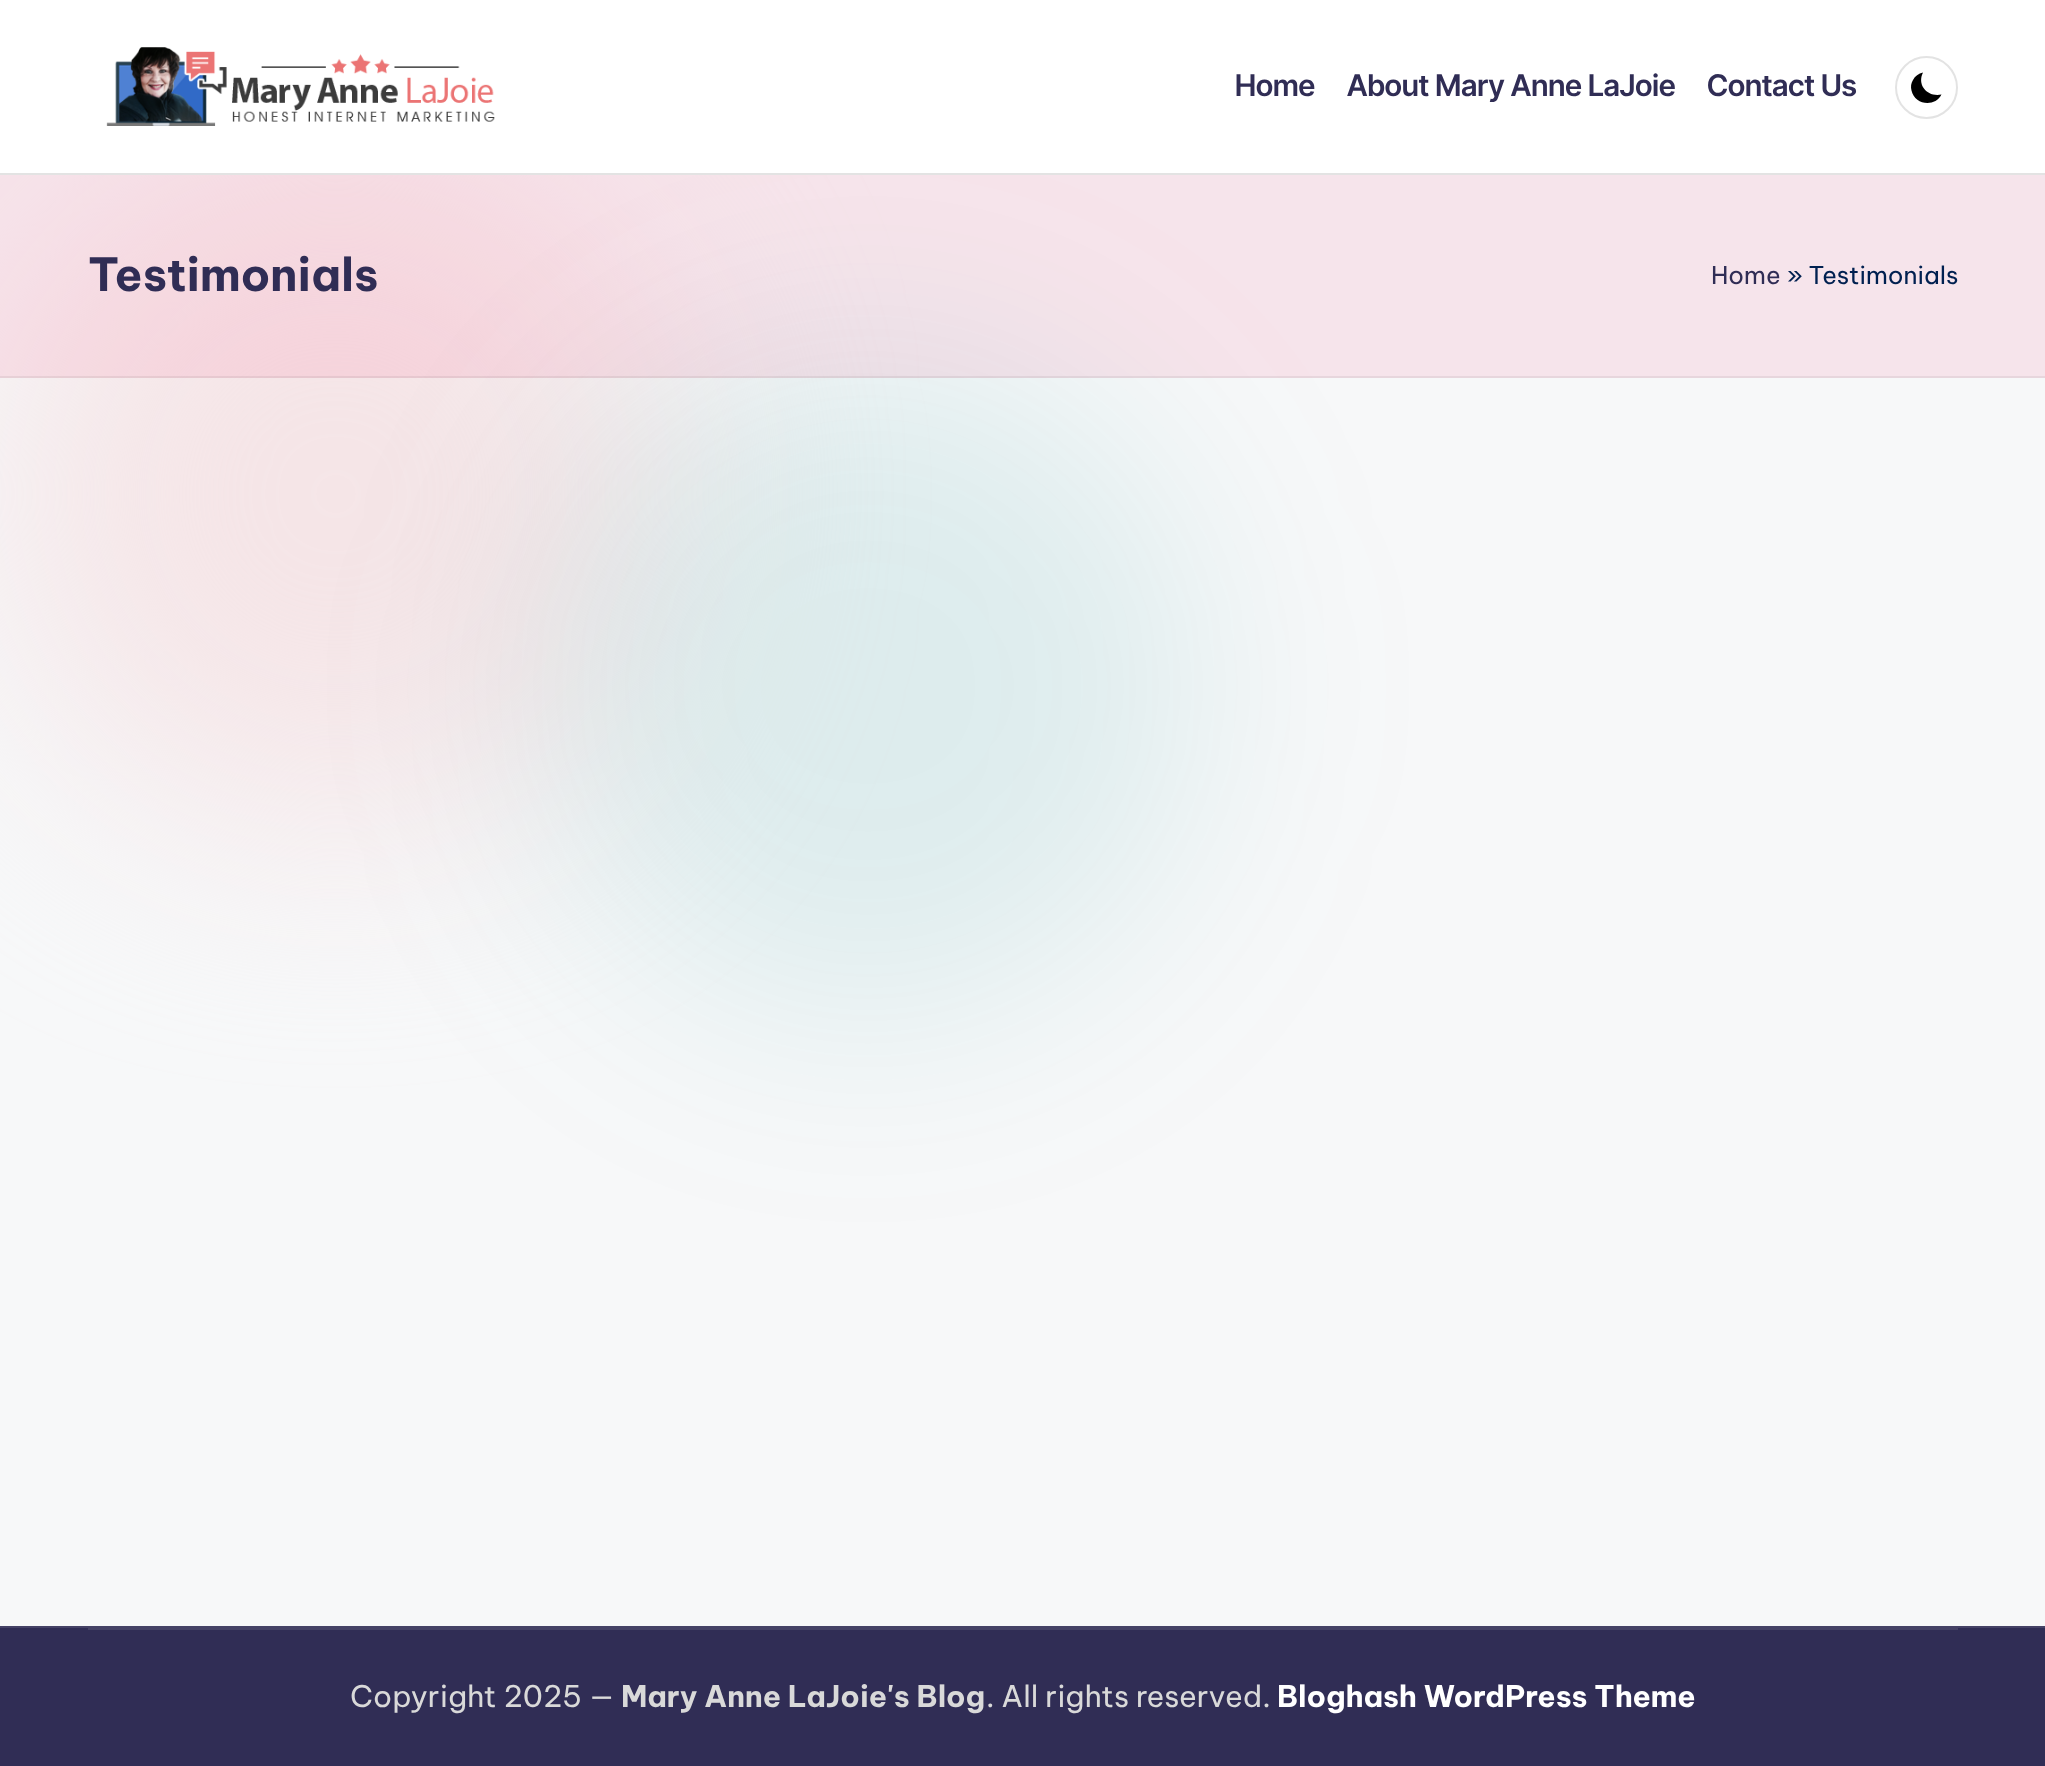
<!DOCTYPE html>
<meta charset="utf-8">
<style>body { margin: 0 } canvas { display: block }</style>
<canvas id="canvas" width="2045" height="1766"></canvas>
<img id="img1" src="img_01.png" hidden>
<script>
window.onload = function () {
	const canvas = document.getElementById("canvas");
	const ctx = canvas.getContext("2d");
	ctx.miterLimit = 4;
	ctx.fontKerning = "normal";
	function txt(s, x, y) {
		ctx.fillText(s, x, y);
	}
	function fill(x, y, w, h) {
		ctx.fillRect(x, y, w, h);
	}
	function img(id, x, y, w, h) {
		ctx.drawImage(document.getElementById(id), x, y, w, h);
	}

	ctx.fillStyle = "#F7F8F9";
	fill(0, 0, 2045, 1766);
	ctx.fillStyle = "#F5E5E7";
	ctx.filter = "blur(112px)";
	ctx.beginPath();
	ctx.roundRect(0, 158, 672, 672, 336);
	ctx.fill();
	ctx.filter = "none";
	ctx.fillStyle = "rgba(4, 134, 139, 0.1)";
	ctx.filter = "blur(112px)";
	ctx.beginPath();
	ctx.roundRect(532, 350, 672, 672, 336);
	ctx.fill();
	ctx.filter = "none";
	ctx.fillStyle = "#FFFFFF";
	fill(0, 0, 2045, 173);
	ctx.fillStyle = "#E3E3E3";
	fill(0, 173, 2045, 2);
	img("img1", 106, 47, 389, 79);
	ctx.beginPath();
	ctx.arc(1926.5, 87.5, 30.5, 0, Math.PI * 2);
	ctx.strokeStyle = "#E3E3E3";
	ctx.lineWidth = 2;
	ctx.stroke();
	ctx.fillStyle = "#000000";
	ctx.beginPath();
	ctx.moveTo(1941.5, 94.5);
	ctx.bezierCurveTo(1928, 97.5, 1916.5, 85.5, 1923, 72.5);
	ctx.bezierCurveTo(1918.5, 73.5, 1915, 76, 1913, 80);
	ctx.bezierCurveTo(1911, 83, 1910.5, 87, 1911.5, 90.5);
	ctx.bezierCurveTo(1914.5, 105, 1935, 107.5, 1941.5, 94.5);
	ctx.closePath();
	ctx.fill();
	ctx.fillStyle = "rgba(244, 54, 118, 0.1)";
	fill(0, 175, 2045, 203);
	ctx.fillStyle = "rgba(0, 0, 0, 0.06)";
	fill(0, 376, 2045, 2);
	ctx.fillStyle = "#302D55";
	fill(0, 1628, 2045, 138);
	ctx.fillStyle = "#454266";
	fill(0, 1626, 2045, 2);
	fill(88, 1628, 1870, 2);
	ctx.font = "600 29.75px Inter Tight";
	ctx.fillStyle = "#302D55";
	txt("Home", 1235, 96);
	txt("About Mary Anne LaJoie", 1347, 96);
	txt("Contact Us", 1707, 96);
	ctx.font = "bold 45.5px Be Vietnam Pro";
	txt("Testimonials", 88, 291);
	ctx.font = "24.5px Be Vietnam Pro";
	txt("Home", 1711, 284);
	ctx.fillStyle = "#002050";
	txt("» Testimonials", 1787, 284);
	ctx.font = "29.75px Be Vietnam Pro";
	ctx.fillStyle = "#D9D9D9";
	txt("Copyright 2025 —", 350, 1707);
	ctx.font = "bold 29.75px Be Vietnam Pro";
	txt("Mary Anne LaJoie's Blog", 621, 1707);
	ctx.font = "29.75px Be Vietnam Pro";
	txt(". All rights reserved.", 986, 1707);
	ctx.font = "bold 29.75px Be Vietnam Pro";
	ctx.fillStyle = "#FFFFFF";
	txt("Bloghash WordPress Theme", 1277, 1707);
};
</script>
